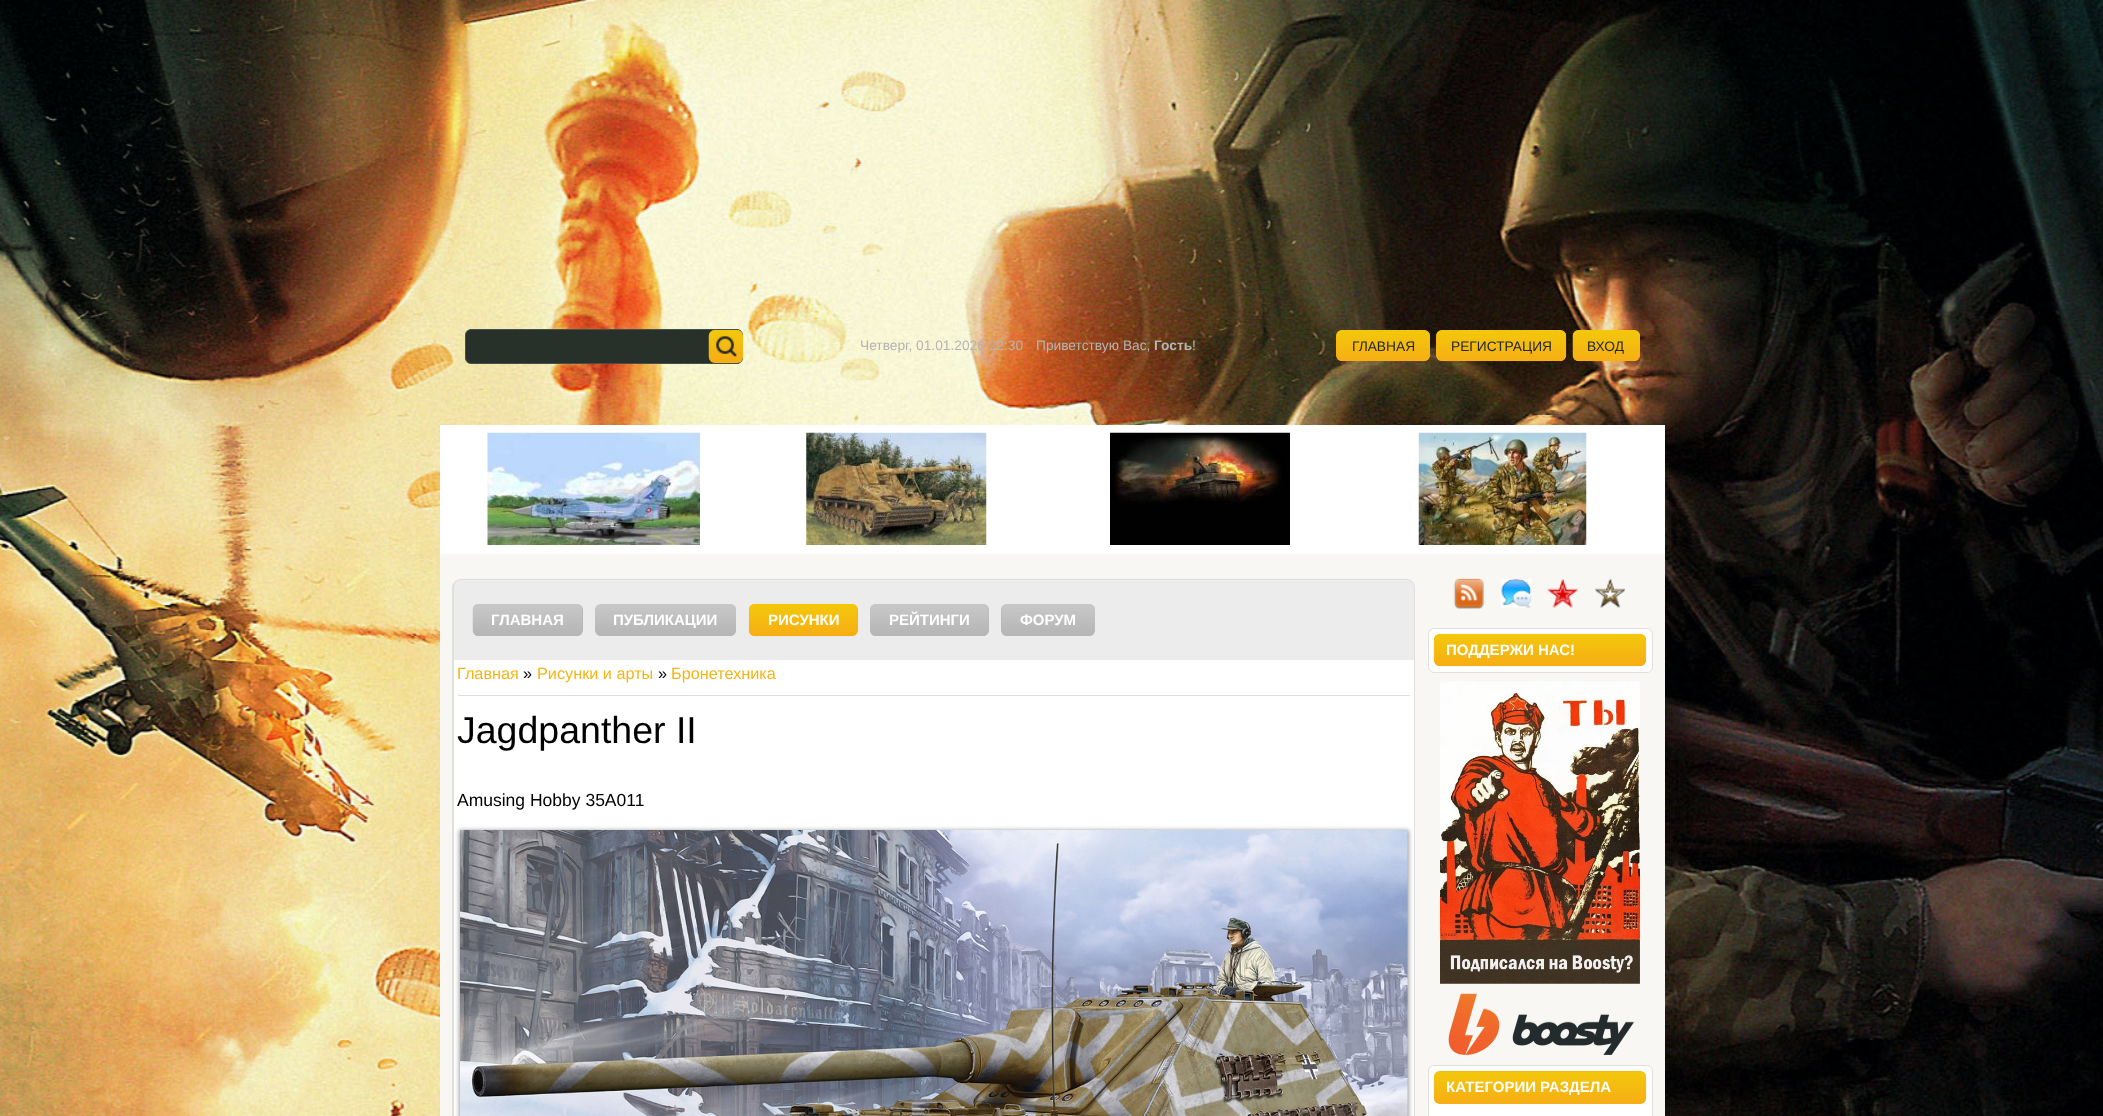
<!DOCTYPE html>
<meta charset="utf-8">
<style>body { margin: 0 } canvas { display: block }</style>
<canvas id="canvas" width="2103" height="1116"></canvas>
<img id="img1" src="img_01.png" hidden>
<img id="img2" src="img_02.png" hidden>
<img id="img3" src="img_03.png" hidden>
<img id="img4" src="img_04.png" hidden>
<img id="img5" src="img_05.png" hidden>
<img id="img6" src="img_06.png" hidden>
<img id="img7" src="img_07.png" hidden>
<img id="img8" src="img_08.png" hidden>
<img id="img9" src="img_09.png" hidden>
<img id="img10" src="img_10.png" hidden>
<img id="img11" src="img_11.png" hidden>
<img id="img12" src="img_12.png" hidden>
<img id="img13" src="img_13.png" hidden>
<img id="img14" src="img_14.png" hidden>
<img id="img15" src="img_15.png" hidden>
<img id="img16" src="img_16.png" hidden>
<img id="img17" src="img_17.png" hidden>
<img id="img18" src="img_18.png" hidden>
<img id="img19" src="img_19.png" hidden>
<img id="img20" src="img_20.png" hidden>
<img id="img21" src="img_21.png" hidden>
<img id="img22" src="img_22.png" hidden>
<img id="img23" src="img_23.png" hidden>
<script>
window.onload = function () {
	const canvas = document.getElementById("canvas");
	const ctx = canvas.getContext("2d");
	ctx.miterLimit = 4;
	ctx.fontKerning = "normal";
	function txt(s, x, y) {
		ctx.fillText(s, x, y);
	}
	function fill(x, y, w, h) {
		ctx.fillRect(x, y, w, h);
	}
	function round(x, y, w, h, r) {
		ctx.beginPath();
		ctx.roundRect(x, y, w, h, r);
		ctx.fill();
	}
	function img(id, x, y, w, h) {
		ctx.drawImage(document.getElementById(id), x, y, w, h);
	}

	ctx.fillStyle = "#FFFFFF";
	fill(0, 0, 2103, 1116);
	img("img1", 0, 0, 2103, 1116);
	ctx.fillStyle = "#283129";
	ctx.beginPath();
	ctx.roundRect(465.5, 329.5, 277, 34, 5.5);
	ctx.fill();
	ctx.strokeStyle = "#45504B";
	ctx.stroke();
	ctx.fillStyle = "#F5BA11";
	round(709, 330, 34, 33, 6);
	img("img2", 708, 330, 35, 33);
	ctx.fillStyle = "#F7AE15";
	round(1336, 330, 94, 31, 6);
	img("img3", 1336, 330, 94, 32);
	round(1436, 330, 130, 31, 6);
	img("img4", 1436, 330, 131, 32);
	round(1573, 330, 67, 31, 6);
	img("img5", 1572, 330, 68, 32);
	ctx.fillStyle = "#FFFFFF";
	fill(440, 425, 1225, 129);
	img("img6", 487, 432, 213, 113);
	img("img7", 806, 432, 181, 113);
	img("img8", 1110, 432, 180, 113);
	img("img9", 1418, 432, 169, 113);
	ctx.fillStyle = "#F8F7F4";
	fill(440, 554, 1225, 562);
	ctx.fillStyle = "#ECECEC";
	ctx.beginPath();
	ctx.roundRect(453, 579, 962, 81, [9, 9, 0, 0]);
	ctx.fill();
	ctx.fillStyle = "#DFDFDC";
	ctx.beginPath();
	ctx.moveTo(461, 579);
	ctx.lineTo(1406, 579);
	ctx.bezierCurveTo(1411, 579, 1415, 583, 1415, 588);
	ctx.lineTo(1415, 660);
	ctx.lineTo(452, 660);
	ctx.lineTo(452, 588);
	ctx.bezierCurveTo(452, 583, 456, 579, 461, 579);
	ctx.closePath();
	ctx.moveTo(461, 580);
	ctx.lineTo(1406, 580);
	ctx.bezierCurveTo(1410, 580, 1414, 583, 1414, 588);
	ctx.lineTo(1414, 660);
	ctx.lineTo(454, 660);
	ctx.lineTo(454, 588);
	ctx.bezierCurveTo(454, 583, 457, 580, 461, 580);
	ctx.closePath();
	ctx.fill("evenodd");
	ctx.fillStyle = "#B5B5B6";
	round(473, 604, 110, 32, 6);
	img("img10", 472, 604, 111, 32);
	img("img11", 595, 604, 141, 32);
	ctx.fillStyle = "#F7AE15";
	round(749, 604, 109, 32, 6);
	img("img12", 748, 603, 110, 34);
	ctx.fillStyle = "#B5B5B6";
	round(870, 604, 119, 32, 6);
	img("img13", 870, 604, 119, 32);
	round(1001, 604, 94, 32, 6);
	img("img14", 1001, 604, 94, 32);
	ctx.fillStyle = "#FFFFFF";
	fill(454, 660, 960, 456);
	ctx.fillStyle = "#DFDFDC";
	ctx.beginPath();
	ctx.moveTo(452, 660);
	ctx.lineTo(1415, 660);
	ctx.lineTo(1415, 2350);
	ctx.bezierCurveTo(1415, 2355, 1411, 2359, 1406, 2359);
	ctx.lineTo(461, 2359);
	ctx.bezierCurveTo(456, 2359, 452, 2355, 452, 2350);
	ctx.closePath();
	ctx.moveTo(454, 660);
	ctx.lineTo(1414, 660);
	ctx.lineTo(1414, 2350);
	ctx.bezierCurveTo(1414, 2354, 1410, 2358, 1406, 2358);
	ctx.lineTo(461, 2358);
	ctx.bezierCurveTo(457, 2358, 454, 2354, 454, 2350);
	ctx.closePath();
	ctx.fill("evenodd");
	fill(458, 695, 952, 1);
	ctx.fillStyle = "rgba(0, 0, 0, 0.37)";
	ctx.filter = "blur(2px)";
	ctx.beginPath();
	ctx.rect(459, 830, 950, 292);
	ctx.fill();
	ctx.filter = "none";
	img("img15", 460, 830, 948, 286);
	img("img16", 1453, 578, 31, 31);
	img("img17", 1501, 578, 31, 30);
	img("img18", 1547, 579, 31, 29);
	img("img19", 1595, 579, 30, 29);
	ctx.fillStyle = "#FFFFFF";
	ctx.beginPath();
	ctx.roundRect(1428.5, 628.5, 224, 44, 5.5);
	ctx.fill();
	ctx.strokeStyle = "#DFDFDC";
	ctx.stroke();
	img("img20", 1433, 633, 214, 34);
	img("img21", 1440, 681, 200, 303);
	img("img22", 1448, 993, 187, 62);
	ctx.beginPath();
	ctx.roundRect(1428.5, 1065.5, 224, 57, 5.5);
	ctx.fill();
	ctx.stroke();
	ctx.fillStyle = "#F7AE15";
	round(1434, 1071, 212, 33, 6);
	img("img23", 1433, 1071, 214, 33);
	ctx.font = "13.75px Liberation Sans";
	ctx.fillStyle = "#B4B4B4";
	txt("Четверг, 01.01.2026 22:30", 860, 350);
	txt("Приветствую Вас,", 1036, 350);
	ctx.font = "bold 13.75px Liberation Sans";
	txt("Гость", 1154, 350);
	ctx.font = "13.75px Liberation Sans";
	txt("!", 1192, 350);
	ctx.fillStyle = "#23282B";
	txt("ГЛАВНАЯ", 1352, 351);
	txt("РЕГИСТРАЦИЯ", 1451, 351);
	txt("ВХОД", 1587, 351);
	ctx.font = "bold 15px Liberation Sans";
	ctx.fillStyle = "#FFFFFF";
	txt("ГЛАВНАЯ", 491, 625);
	txt("ПУБЛИКАЦИИ", 613, 625);
	txt("РИСУНКИ", 768, 625);
	txt("РЕЙТИНГИ", 889, 625);
	txt("ФОРУМ", 1020, 625);
	ctx.font = "16.25px Liberation Sans";
	ctx.fillStyle = "#F6B413";
	txt("Главная", 457, 679);
	ctx.fillStyle = "#000000";
	txt("»", 523, 679);
	ctx.fillStyle = "#F6B413";
	txt("Рисунки и арты", 537, 679);
	ctx.fillStyle = "#000000";
	txt("»", 658, 679);
	ctx.fillStyle = "#F6B413";
	txt("Бронетехника", 671, 679);
	ctx.font = "37.5px Liberation Sans";
	ctx.fillStyle = "#000000";
	txt("Jagdpanther II", 457, 743);
	ctx.font = "17.5px Liberation Sans";
	txt("Amusing Hobby 35A011", 457, 806);
	ctx.font = "bold 15px Liberation Sans";
	ctx.fillStyle = "#FFFFFF";
	txt("ПОДДЕРЖИ НАС!", 1446, 655);
	txt("КАТЕГОРИИ РАЗДЕЛА", 1446, 1092);
};
</script>
